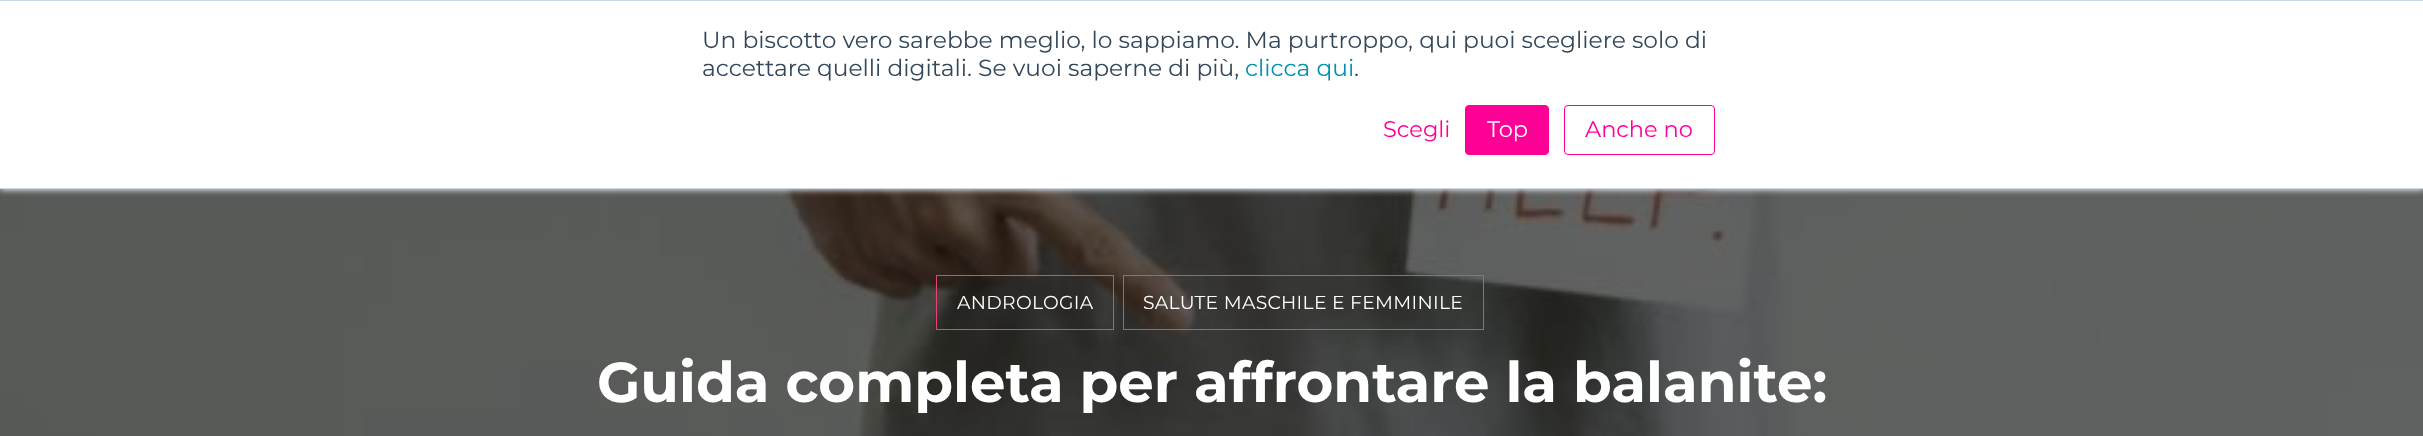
<!DOCTYPE html>
<meta charset="utf-8">
<style>body { margin: 0 } canvas { display: block }</style>
<canvas id="canvas" width="2423" height="436"></canvas>
<img id="img1" src="img_01.png" hidden>
<script>
window.onload = function () {
	const canvas = document.getElementById("canvas");
	const ctx = canvas.getContext("2d");
	ctx.miterLimit = 4;
	ctx.fontKerning = "normal";
	function txt(s, x, y) {
		ctx.fillText(s, x, y);
	}
	function fill(x, y, w, h) {
		ctx.fillRect(x, y, w, h);
	}
	function img(id, x, y, w, h) {
		ctx.drawImage(document.getElementById(id), x, y, w, h);
	}

	ctx.fillStyle = "#FFFFFF";
	fill(0, 0, 2423, 436);
	img("img1", 0, 189, 2423, 247);
	ctx.fillStyle = "#EAF0F6";
	ctx.filter = "blur(3px)";
	ctx.beginPath();
	ctx.rect(0, 1, 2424, 189);
	ctx.fill();
	ctx.filter = "none";
	ctx.fillStyle = "#FFFFFF";
	fill(0, 1, 2423, 187);
	ctx.fillStyle = "#CBD6E2";
	fill(0, 0, 2423, 1);
	fill(0, 188, 2423, 1);
	ctx.fillStyle = "#FF0097";
	ctx.beginPath();
	ctx.roundRect(1465.5, 105.5, 83, 49, 3.5);
	ctx.fill();
	ctx.strokeStyle = "#FF0097";
	ctx.stroke();
	ctx.beginPath();
	ctx.roundRect(1564.5, 105.5, 150, 49, 3.5);
	ctx.stroke();
	ctx.strokeStyle = "#E64378";
	ctx.strokeRect(936.5, 275.5, 177, 54);
	ctx.strokeRect(1123.5, 275.5, 360, 54);
	ctx.font = "23.35px Montserrat";
	ctx.fillStyle = "#33475B";
	txt("Un biscotto vero sarebbe meglio, lo sappiamo. Ma purtroppo, qui puoi scegliere solo di", 702, 48);
	txt("accettare quelli digitali. Se vuoi saperne di più,", 702, 76);
	ctx.fillStyle = "#0091AE";
	txt("clicca qui", 1245, 76);
	ctx.fillStyle = "#33475B";
	txt(".", 1354, 76);
	ctx.font = "22.5px Montserrat";
	ctx.fillStyle = "#FF0097";
	txt("Scegli", 1383, 137);
	ctx.fillStyle = "#FFFFFF";
	txt("Top", 1487, 137);
	ctx.fillStyle = "#FF0097";
	txt("Anche no", 1585, 137);
	ctx.letterSpacing = "0.3px";
	ctx.font = "18.75px Montserrat";
	ctx.fillStyle = "#FFFFFF";
	txt("ANDROLOGIA", 957, 309);
	txt("SALUTE MASCHILE E FEMMINILE", 1143, 309);
	ctx.letterSpacing = "0px";
	ctx.font = "bold 56.25px Montserrat";
	txt("Guida completa per affrontare la balanite:", 597, 402);
};
</script>
